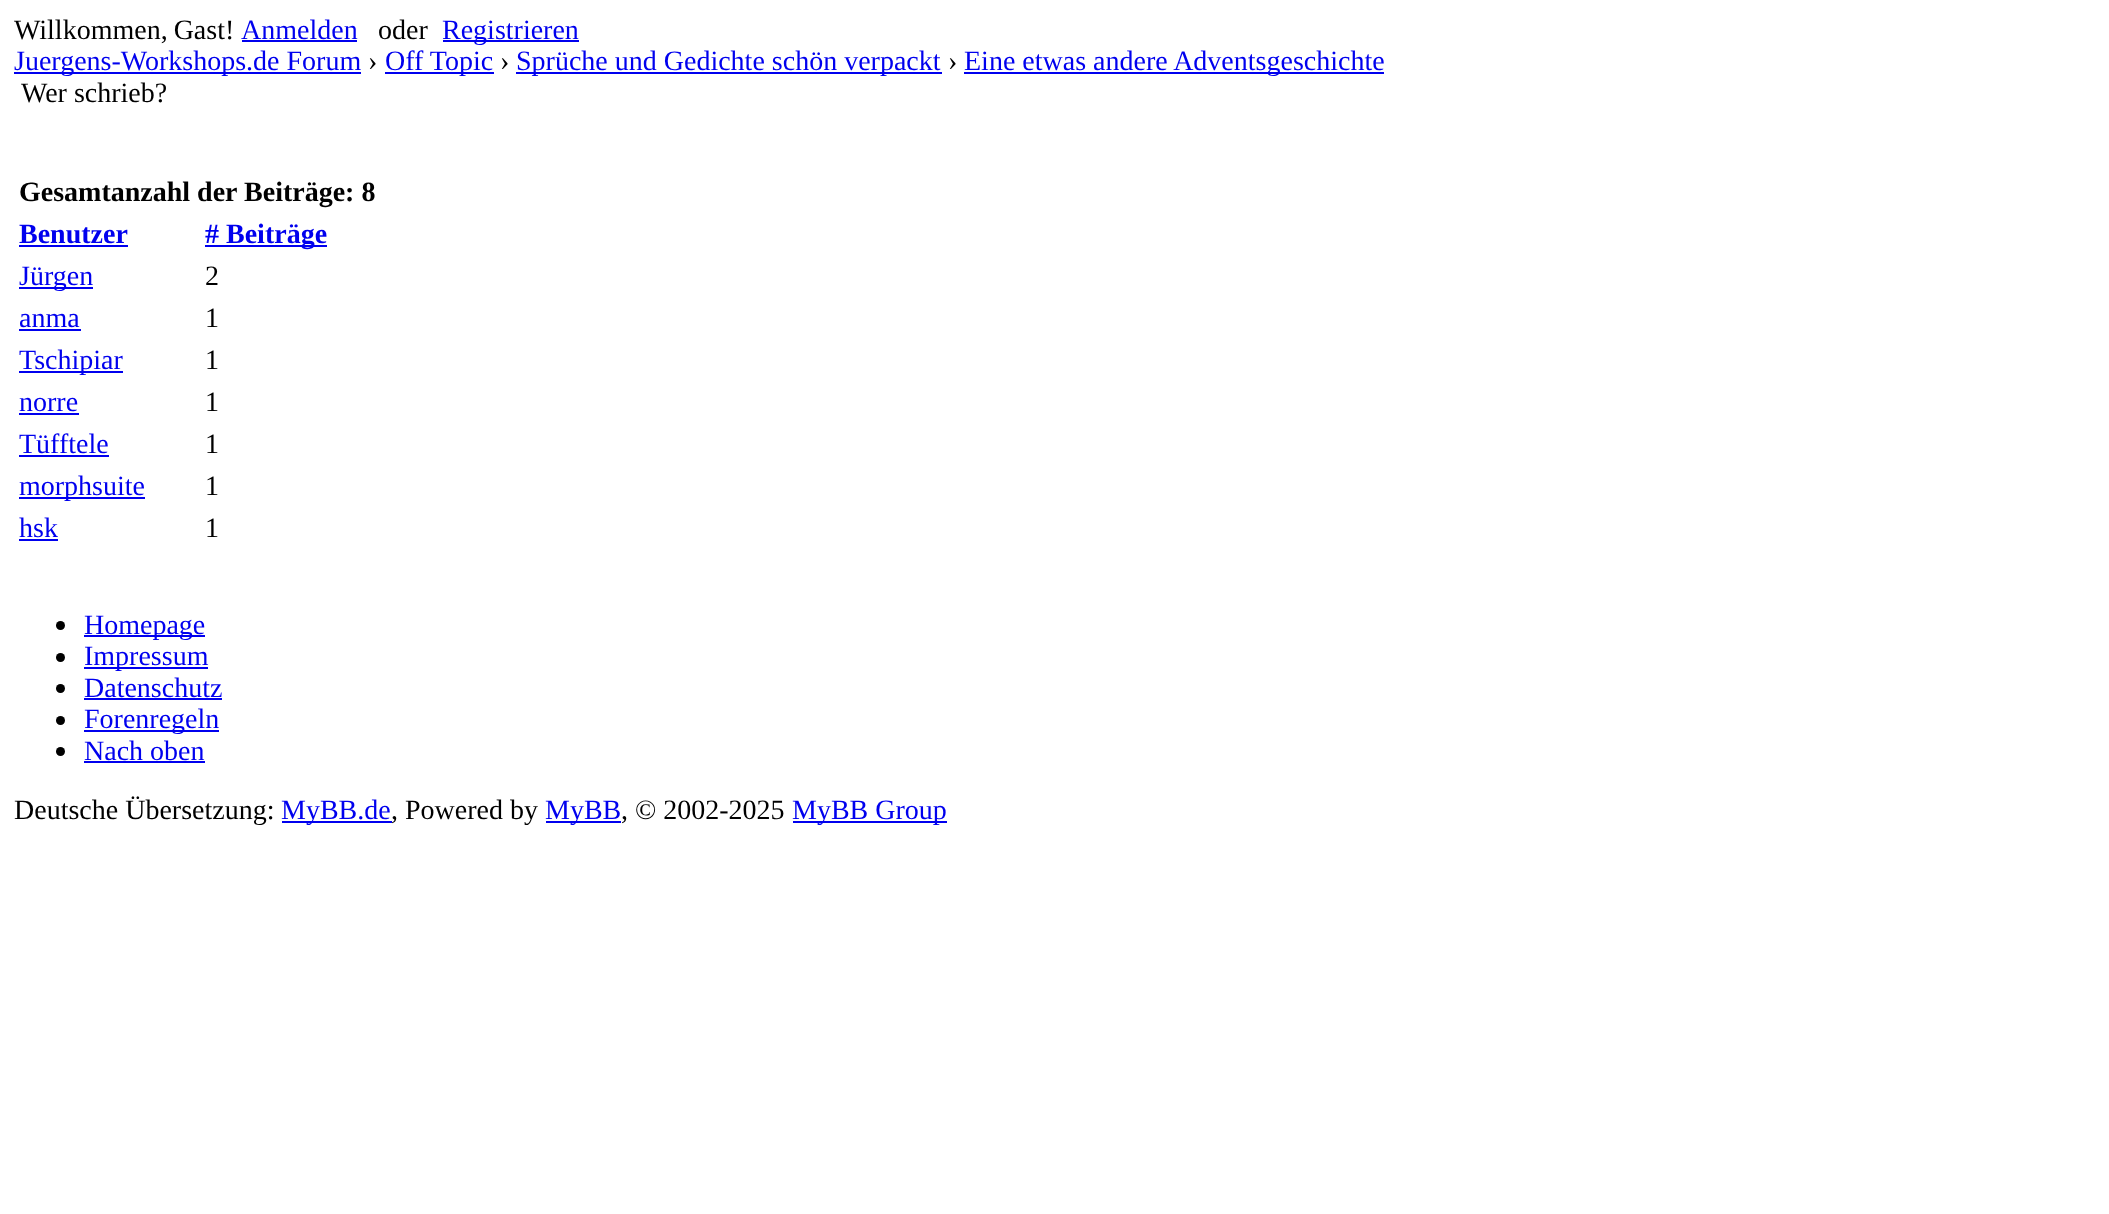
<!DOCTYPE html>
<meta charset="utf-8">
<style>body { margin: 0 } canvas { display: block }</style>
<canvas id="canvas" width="2109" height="1214"></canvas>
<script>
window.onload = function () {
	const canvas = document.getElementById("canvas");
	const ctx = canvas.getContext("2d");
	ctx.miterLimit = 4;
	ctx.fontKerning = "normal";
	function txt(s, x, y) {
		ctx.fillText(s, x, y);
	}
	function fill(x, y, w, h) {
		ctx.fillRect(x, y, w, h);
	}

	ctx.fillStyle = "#FFFFFF";
	fill(0, 0, 2109, 1214);
	ctx.fillStyle = "#0000EE";
	fill(242, 40, 115, 2);
	fill(443, 40, 136, 2);
	fill(14, 72, 347, 2);
	fill(385, 72, 109, 2);
	fill(516, 72, 426, 2);
	fill(964, 72, 420, 2);
	fill(19, 245, 109, 2);
	fill(205, 245, 122, 2);
	fill(19, 287, 74, 2);
	fill(19, 329, 62, 2);
	fill(19, 371, 104, 2);
	fill(19, 413, 60, 2);
	fill(19, 455, 90, 2);
	fill(19, 497, 126, 2);
	fill(19, 539, 39, 2);
	ctx.fillStyle = "#000000";
	ctx.beginPath();
	ctx.arc(60.5, 625.5, 4.5, 0, Math.PI * 2);
	ctx.fill();
	ctx.fillStyle = "#0000EE";
	fill(84, 635, 121, 2);
	ctx.fillStyle = "#000000";
	ctx.beginPath();
	ctx.arc(60.5, 657.5, 4.5, 0, Math.PI * 2);
	ctx.fill();
	ctx.fillStyle = "#0000EE";
	fill(84, 667, 124, 2);
	ctx.fillStyle = "#000000";
	ctx.beginPath();
	ctx.arc(60.5, 688.5, 4.5, 0, Math.PI * 2);
	ctx.fill();
	ctx.fillStyle = "#0000EE";
	fill(84, 698, 138, 2);
	ctx.fillStyle = "#000000";
	ctx.beginPath();
	ctx.arc(60.5, 720.5, 4.5, 0, Math.PI * 2);
	ctx.fill();
	ctx.fillStyle = "#0000EE";
	fill(84, 730, 135, 2);
	ctx.fillStyle = "#000000";
	ctx.beginPath();
	ctx.arc(60.5, 751.5, 4.5, 0, Math.PI * 2);
	ctx.fill();
	ctx.fillStyle = "#0000EE";
	fill(84, 761, 121, 2);
	fill(282, 821, 110, 2);
	fill(546, 821, 75, 2);
	fill(793, 821, 154, 2);
	ctx.wordSpacing = "-1px";
	ctx.font = "28px Liberation Serif";
	ctx.fillStyle = "#000000";
	txt("Willkommen, Gast!", 14, 39);
	ctx.wordSpacing = "0px";
	ctx.fillStyle = "#0000EE";
	txt("Anmelden", 241, 39);
	ctx.fillStyle = "#000000";
	txt("oder", 378, 39);
	ctx.fillStyle = "#0000EE";
	txt("Registrieren", 442, 39);
	txt("Juergens-Workshops.de Forum", 14, 70);
	ctx.fillStyle = "#000000";
	txt("›", 368, 70);
	ctx.fillStyle = "#0000EE";
	txt("Off Topic", 385, 70);
	ctx.fillStyle = "#000000";
	txt("›", 500, 70);
	ctx.fillStyle = "#0000EE";
	txt("Sprüche und Gedichte schön verpackt", 516, 70);
	ctx.fillStyle = "#000000";
	txt("›", 948, 70);
	ctx.fillStyle = "#0000EE";
	txt("Eine etwas andere Adventsgeschichte", 964, 70);
	ctx.fillStyle = "#000000";
	txt("Wer schrieb?", 21, 102);
	ctx.font = "bold 28px Liberation Serif";
	txt("Gesamtanzahl der Beiträge: 8", 19, 201);
	ctx.fillStyle = "#0000EE";
	txt("Benutzer", 19, 243);
	txt("# Beiträge", 205, 243);
	ctx.font = "28px Liberation Serif";
	txt("Jürgen", 19, 285);
	ctx.fillStyle = "#000000";
	txt("2", 205, 285);
	ctx.fillStyle = "#0000EE";
	txt("anma", 19, 327);
	ctx.fillStyle = "#000000";
	txt("1", 205, 327);
	ctx.fillStyle = "#0000EE";
	txt("Tschipiar", 19, 369);
	ctx.fillStyle = "#000000";
	txt("1", 205, 369);
	ctx.fillStyle = "#0000EE";
	txt("norre", 19, 411);
	ctx.fillStyle = "#000000";
	txt("1", 205, 411);
	ctx.fillStyle = "#0000EE";
	txt("Tüfftele", 19, 453);
	ctx.fillStyle = "#000000";
	txt("1", 205, 453);
	ctx.fillStyle = "#0000EE";
	txt("morphsuite", 19, 495);
	ctx.fillStyle = "#000000";
	txt("1", 205, 495);
	ctx.fillStyle = "#0000EE";
	txt("hsk", 19, 537);
	ctx.fillStyle = "#000000";
	txt("1", 205, 537);
	ctx.fillStyle = "#0000EE";
	txt("Homepage", 84, 634);
	txt("Impressum", 84, 665);
	txt("Datenschutz", 84, 697);
	txt("Forenregeln", 84, 728);
	txt("Nach oben", 84, 760);
	ctx.fillStyle = "#000000";
	txt("Deutsche Übersetzung:", 14, 819);
	ctx.fillStyle = "#0000EE";
	txt("MyBB.de", 281, 819);
	ctx.fillStyle = "#000000";
	txt(", Powered by", 391, 819);
	ctx.fillStyle = "#0000EE";
	txt("MyBB", 545, 819);
	ctx.fillStyle = "#000000";
	txt(", © 2002-2025", 621, 819);
	ctx.fillStyle = "#0000EE";
	txt("MyBB Group", 792, 819);
};
</script>
